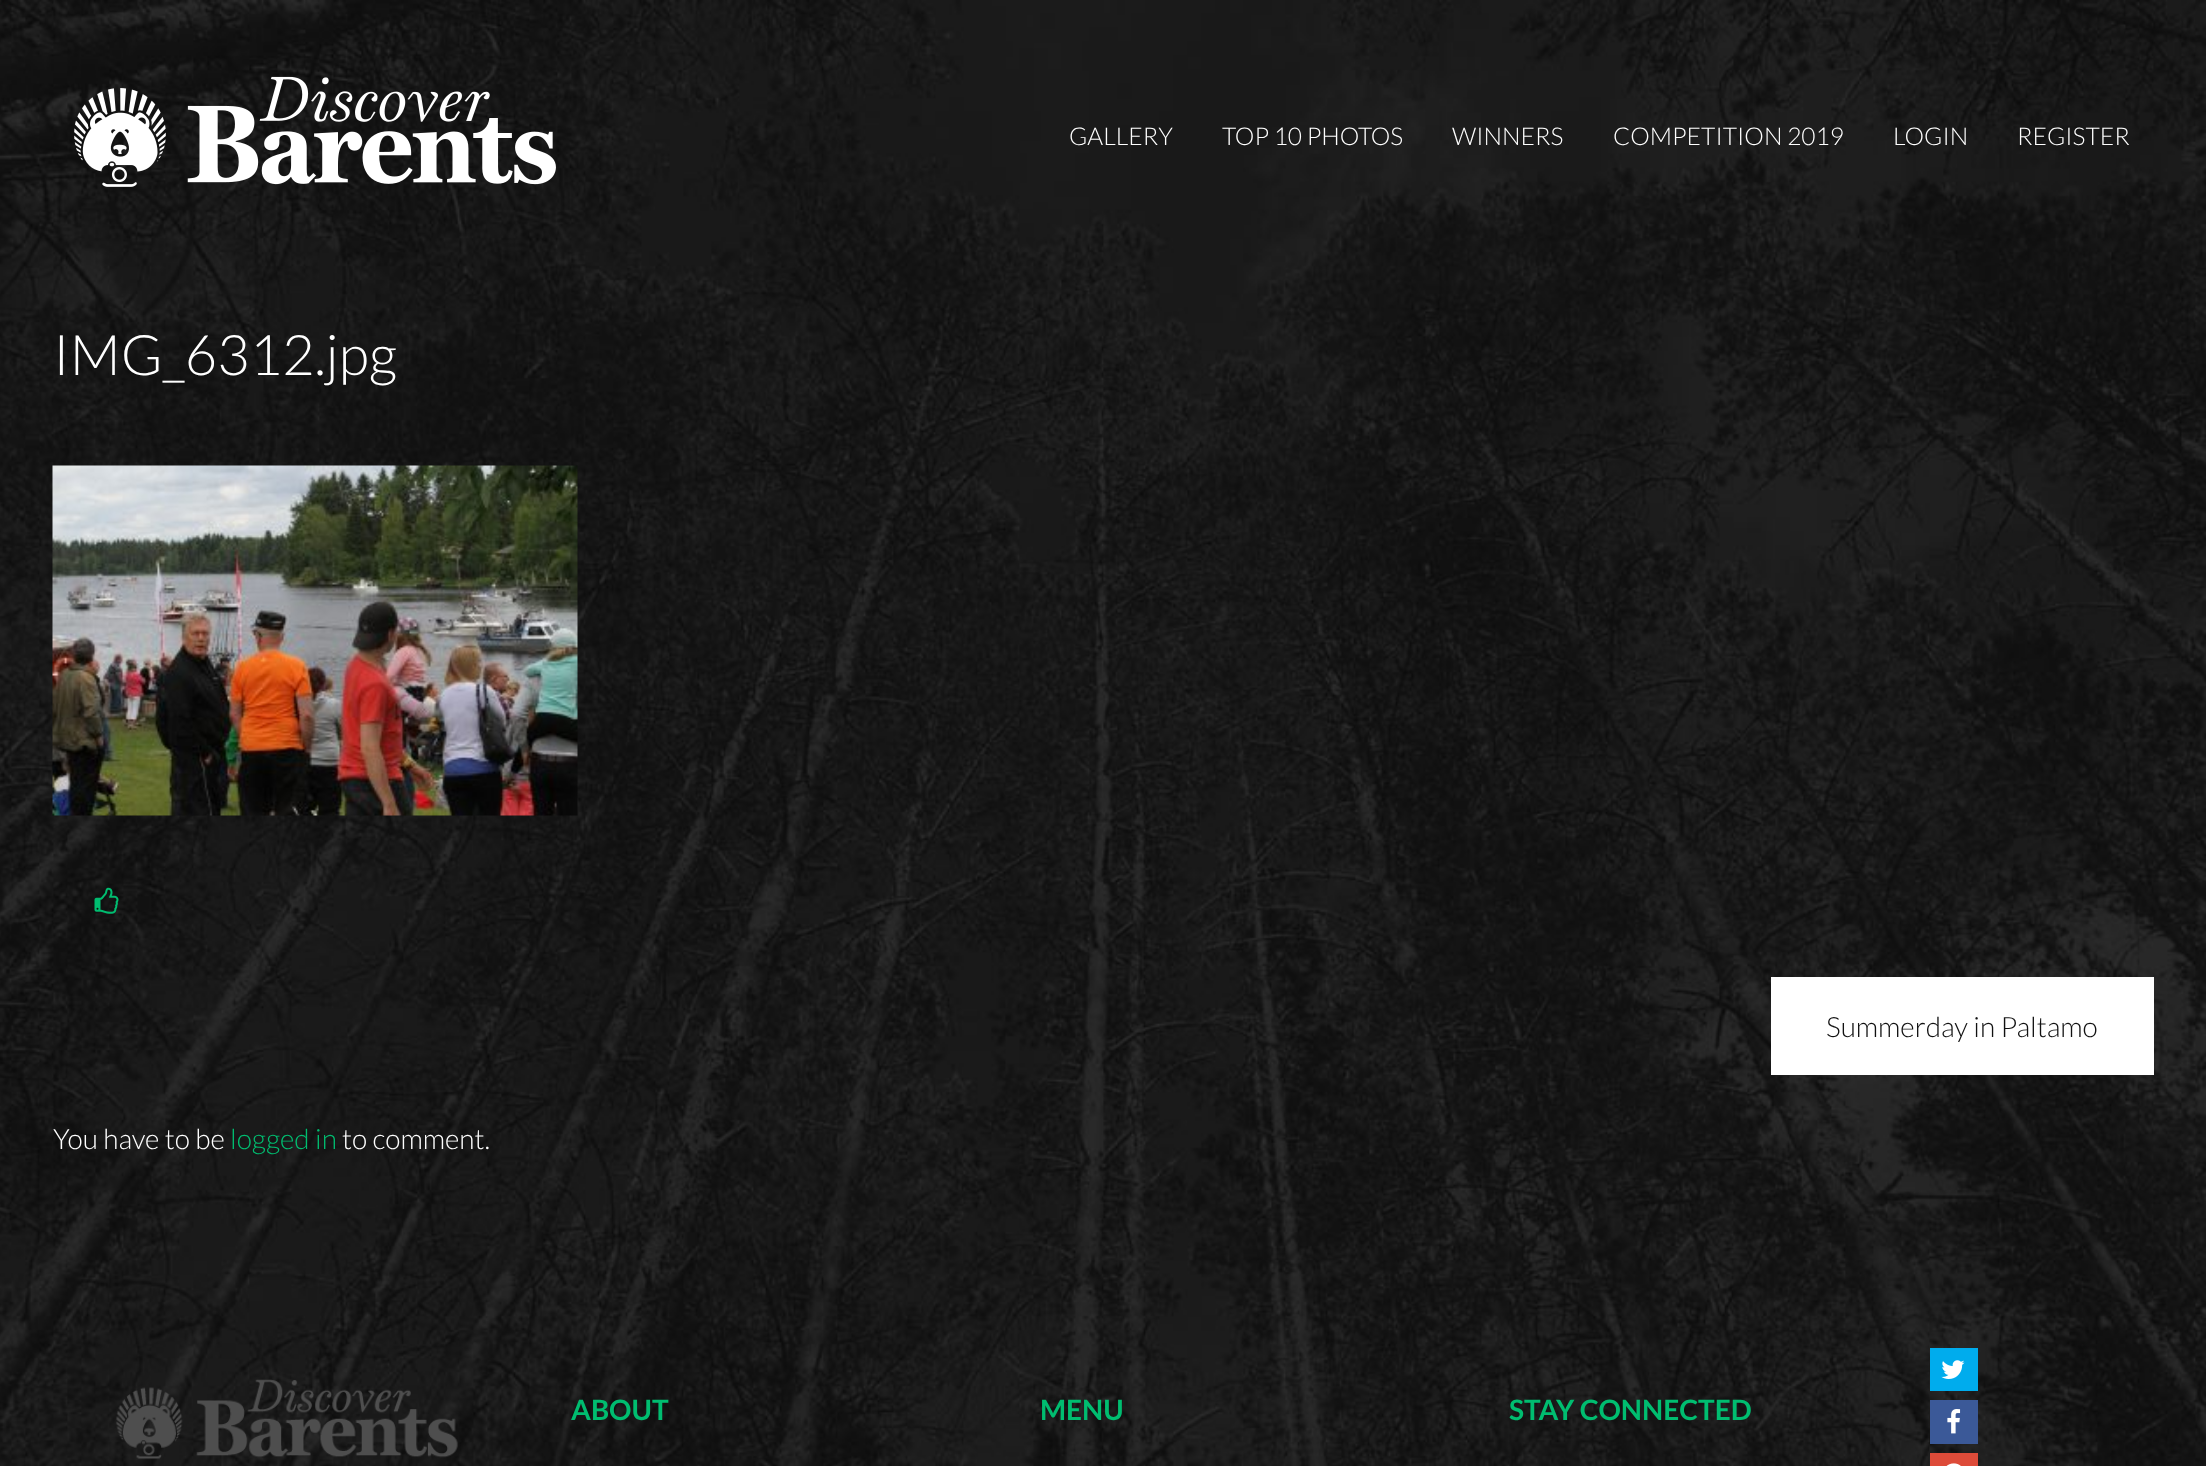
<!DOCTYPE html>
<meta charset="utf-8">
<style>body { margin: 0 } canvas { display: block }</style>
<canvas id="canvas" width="2206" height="1466"></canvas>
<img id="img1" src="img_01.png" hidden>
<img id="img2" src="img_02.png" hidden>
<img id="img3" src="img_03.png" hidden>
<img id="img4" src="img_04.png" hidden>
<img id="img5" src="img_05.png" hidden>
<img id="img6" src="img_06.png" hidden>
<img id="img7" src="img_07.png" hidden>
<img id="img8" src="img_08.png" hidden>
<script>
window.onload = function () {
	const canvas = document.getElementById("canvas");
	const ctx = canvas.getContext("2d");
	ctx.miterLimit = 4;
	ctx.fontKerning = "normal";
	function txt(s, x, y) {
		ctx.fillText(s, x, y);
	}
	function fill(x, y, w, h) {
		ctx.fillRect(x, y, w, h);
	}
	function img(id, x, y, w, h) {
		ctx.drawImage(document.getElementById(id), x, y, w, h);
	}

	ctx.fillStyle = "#FFFFFF";
	fill(0, 0, 2206, 1466);
	img("img1", 0, 0, 2206, 1466);
	img("img2", 74, 76, 482, 111);
	img("img3", 52, 465, 526, 351);
	img("img4", 94, 887, 25, 27);
	fill(1771, 977, 383, 98);
	img("img5", 116, 1379, 342, 80);
	ctx.fillStyle = "#00ACED";
	fill(1930, 1348, 48, 43);
	img("img6", 1941, 1360, 24, 19);
	ctx.fillStyle = "#3B5998";
	fill(1930, 1400, 48, 44);
	img("img7", 1947, 1409, 14, 25);
	ctx.fillStyle = "#DD4B39";
	fill(1930, 1453, 48, 13);
	img("img8", 1946, 1463, 15, 3);
	ctx.font = "300 24.5px Lato";
	ctx.fillStyle = "#FFFFFF";
	txt("GALLERY", 1069, 145);
	txt("TOP 10 PHOTOS", 1222, 145);
	txt("WINNERS", 1452, 145);
	txt("COMPETITION 2019", 1613, 145);
	txt("LOGIN", 1893, 145);
	txt("REGISTER", 2017, 145);
	ctx.font = "300 56px Lato";
	txt("IMG_6312.jpg", 53, 375);
	ctx.font = "300 28px Lato";
	ctx.fillStyle = "#111111";
	txt("Summerday in Paltamo", 1826, 1037);
	ctx.fillStyle = "#FFFFFF";
	txt("You have to be", 53, 1149);
	ctx.fillStyle = "#00BD70";
	txt("logged in", 230, 1149);
	ctx.fillStyle = "#FFFFFF";
	txt("to comment.", 342, 1149);
	ctx.font = "bold 28px Lato";
	ctx.fillStyle = "#00BD70";
	txt("ABOUT", 571, 1420);
	txt("MENU", 1040, 1420);
	txt("STAY CONNECTED", 1509, 1420);
};
</script>
